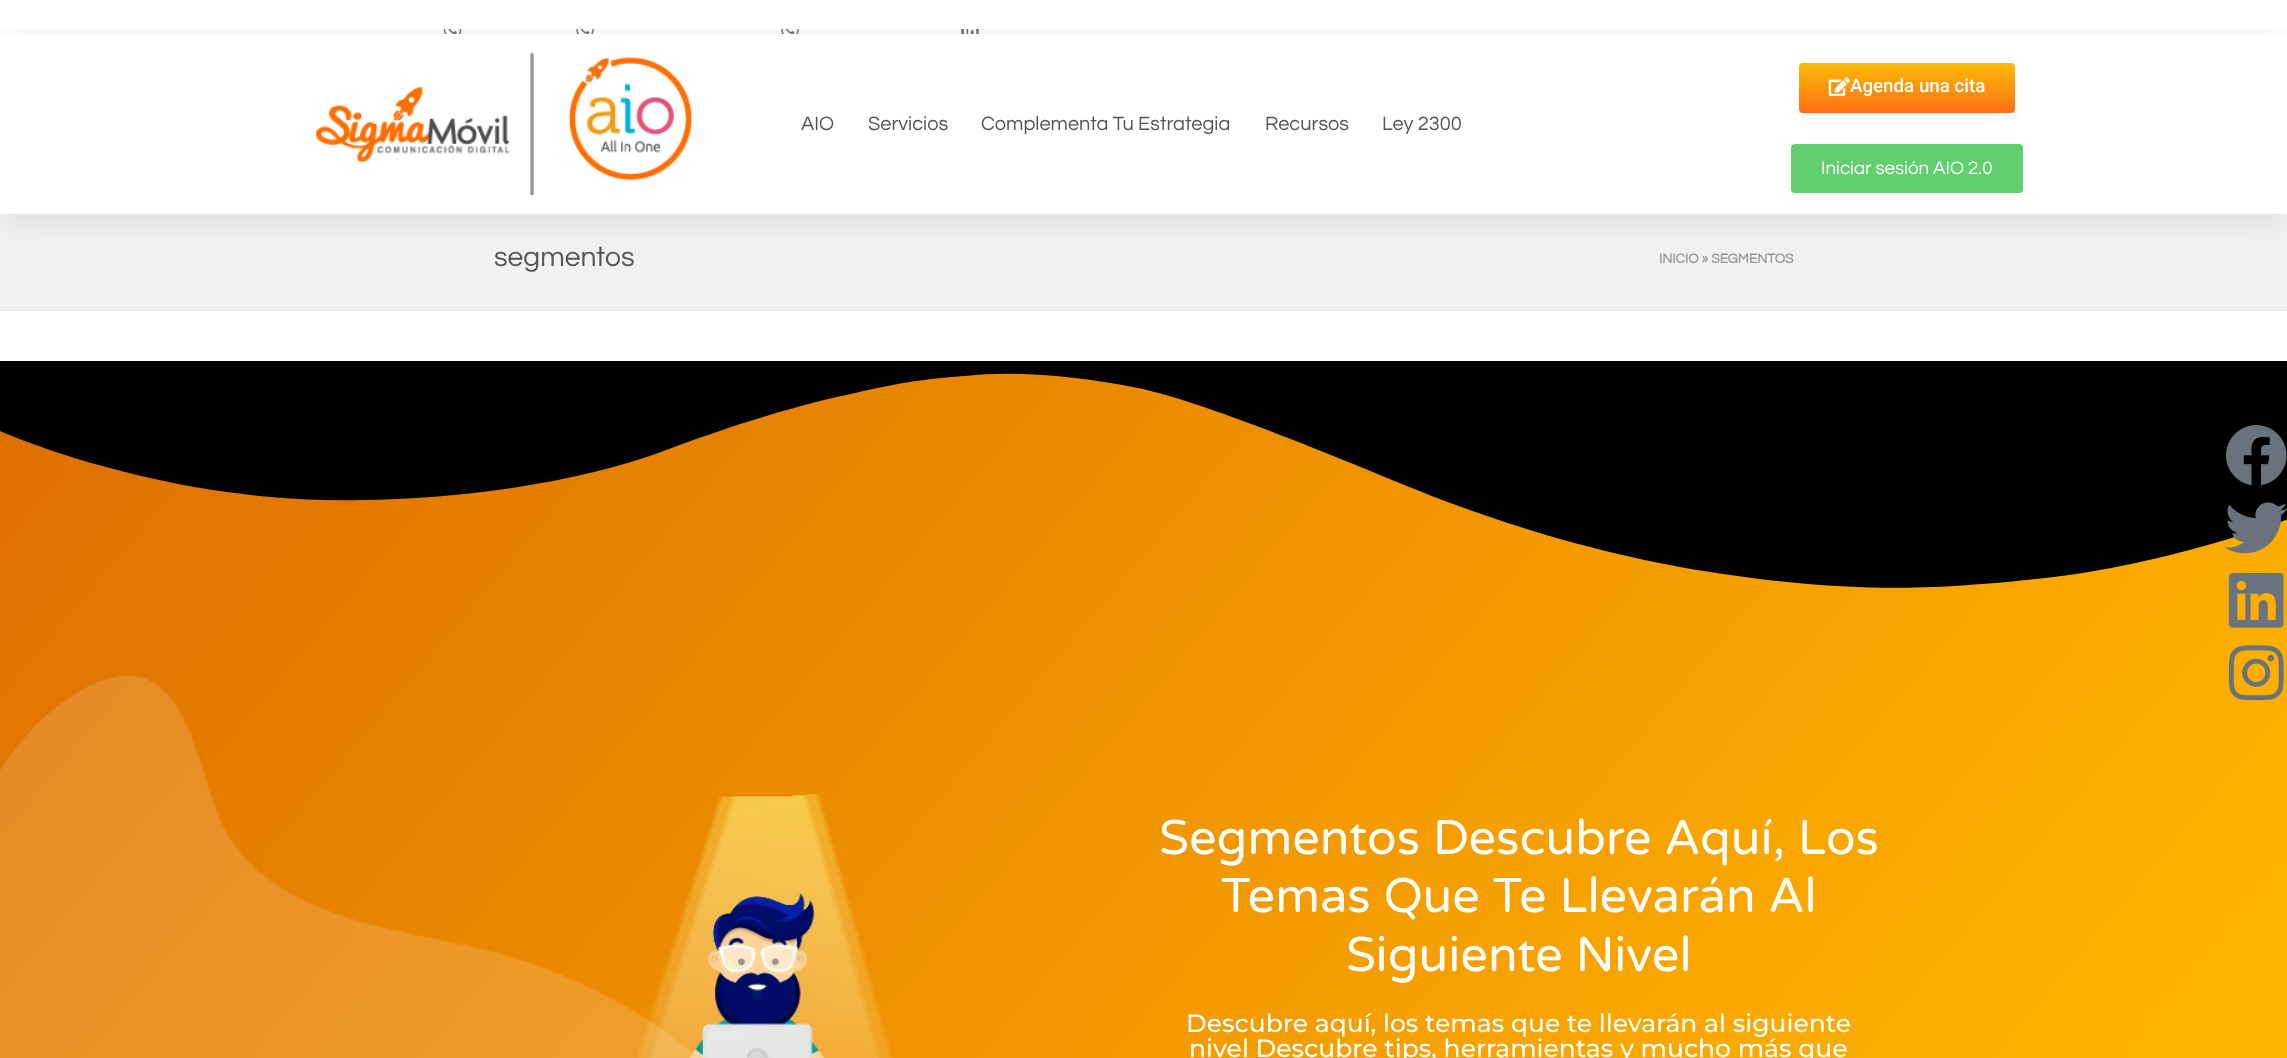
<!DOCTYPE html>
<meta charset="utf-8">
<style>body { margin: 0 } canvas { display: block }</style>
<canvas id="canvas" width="2287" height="1058"></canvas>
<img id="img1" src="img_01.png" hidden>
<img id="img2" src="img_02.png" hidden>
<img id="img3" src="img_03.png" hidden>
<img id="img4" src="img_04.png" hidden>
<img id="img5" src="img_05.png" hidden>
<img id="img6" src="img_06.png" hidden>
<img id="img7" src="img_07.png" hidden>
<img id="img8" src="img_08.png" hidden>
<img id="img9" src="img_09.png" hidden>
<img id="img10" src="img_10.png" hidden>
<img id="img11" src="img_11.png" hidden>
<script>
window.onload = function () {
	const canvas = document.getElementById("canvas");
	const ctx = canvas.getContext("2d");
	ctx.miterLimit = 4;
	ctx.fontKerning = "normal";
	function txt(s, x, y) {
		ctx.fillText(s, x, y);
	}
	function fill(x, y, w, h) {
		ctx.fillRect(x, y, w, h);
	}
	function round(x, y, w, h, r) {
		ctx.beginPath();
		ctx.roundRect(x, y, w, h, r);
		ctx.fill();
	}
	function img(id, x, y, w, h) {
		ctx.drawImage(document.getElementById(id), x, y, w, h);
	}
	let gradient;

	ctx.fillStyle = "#FFFFFF";
	fill(0, 0, 2287, 1058);
	img("img1", 444, 29, 18, 5);
	img("img2", 576, 29, 18, 5);
	img("img2", 781, 29, 18, 5);
	img("img3", 961, 29, 18, 5);
	ctx.fillStyle = "#F2F2F2";
	fill(0, 214, 2287, 96);
	ctx.save();
	ctx.beginPath();
	ctx.rect(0, 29, 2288, 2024);
	ctx.clip();
	ctx.fillStyle = "rgba(0, 0, 0, 0.1)";
	ctx.filter = "blur(19px)";
	ctx.beginPath();
	ctx.rect(0, 40, 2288, 180);
	ctx.fill();
	ctx.filter = "none";
	ctx.restore();
	ctx.fillStyle = "#FFFFFF";
	fill(0, 34, 2287, 180);
	img("img4", 316, 52, 376, 143);
	gradient = ctx.createLinearGradient(1907, 62, 1907, 113);
	gradient.addColorStop(0, "#FCBD08");
	gradient.addColorStop(1, "#FC6F12");
	ctx.fillStyle = gradient;
	round(1799, 63, 216, 50, 4);
	img("img5", 1828, 77, 22, 20);
	ctx.fillStyle = "#61CE70";
	round(1791, 144, 232, 49, 4);
	gradient = ctx.createLinearGradient(242, 72, 2045, 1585);
	gradient.addColorStop(0, "#DD6E00");
	gradient.addColorStop(0.89, "#FFB400");
	ctx.fillStyle = gradient;
	fill(0, 373, 2287, 685);
	ctx.fillStyle = "#000000";
	ctx.beginPath();
	ctx.moveTo(965, 376);
	ctx.bezierCurveTo(1017, 370, 1083, 377, 1138, 388);
	ctx.bezierCurveTo(1192, 399, 1300, 442, 1368, 470);
	ctx.bezierCurveTo(1541, 544, 1674, 572, 1808, 584);
	ctx.bezierCurveTo(1862, 588, 1920, 592, 2045, 578);
	ctx.bezierCurveTo(2170, 564, 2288, 519, 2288, 519);
	ctx.lineTo(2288, 361);
	ctx.lineTo(0, 361);
	ctx.lineTo(0, 431);
	ctx.bezierCurveTo(0, 431, 165, 505, 362, 500);
	ctx.bezierCurveTo(452, 499, 575, 485, 669, 449);
	ctx.bezierCurveTo(717, 431, 788, 407, 851, 394);
	ctx.bezierCurveTo(913, 379, 942, 378, 965, 376);
	ctx.closePath();
	ctx.fill();
	img("img6", 2226, 425, 61, 61);
	img("img7", 2225, 502, 62, 52);
	img("img8", 2228, 573, 56, 55);
	img("img9", 2228, 645, 56, 56);
	ctx.fillStyle = "#E7E7E7";
	fill(0, 310, 2287, 1);
	img("img10", 0, 675, 694, 383);
	img("img11", 636, 794, 258, 264);
	ctx.font = "20px Questrial";
	ctx.fillStyle = "#555555";
	txt("AIO", 801, 130);
	txt("Servicios", 868, 130);
	txt("Complementa Tu Estrategia", 981, 130);
	txt("Recursos", 1265, 130);
	txt("Ley 2300", 1382, 130);
	ctx.font = "500 18.75px Roboto";
	ctx.fillStyle = "#FFFFFF";
	txt("Agenda una cita", 1850, 92);
	ctx.font = "18.75px Questrial";
	txt("Iniciar sesión AIO 2.0", 1821, 174);
	ctx.font = "28.25px Questrial";
	ctx.fillStyle = "#555555";
	txt("segmentos", 494, 266);
	ctx.font = "bold 13.75px Questrial";
	ctx.fillStyle = "#999999";
	txt("INICIO » SEGMENTOS", 1659, 263);
	ctx.font = "48.75px Varela Round";
	ctx.fillStyle = "#FFFFFF";
	txt("Segmentos Descubre Aquí, Los", 1159, 854);
	txt("Temas Que Te Llevarán Al", 1221, 912);
	txt("Siguiente Nivel", 1346, 971);
	ctx.font = "500 25px Montserrat";
	txt("Descubre aquí, los temas que te llevarán al siguiente", 1186, 1032);
	txt("nivel Descubre tips, herramientas y mucho más que", 1189, 1057);
};
</script>
